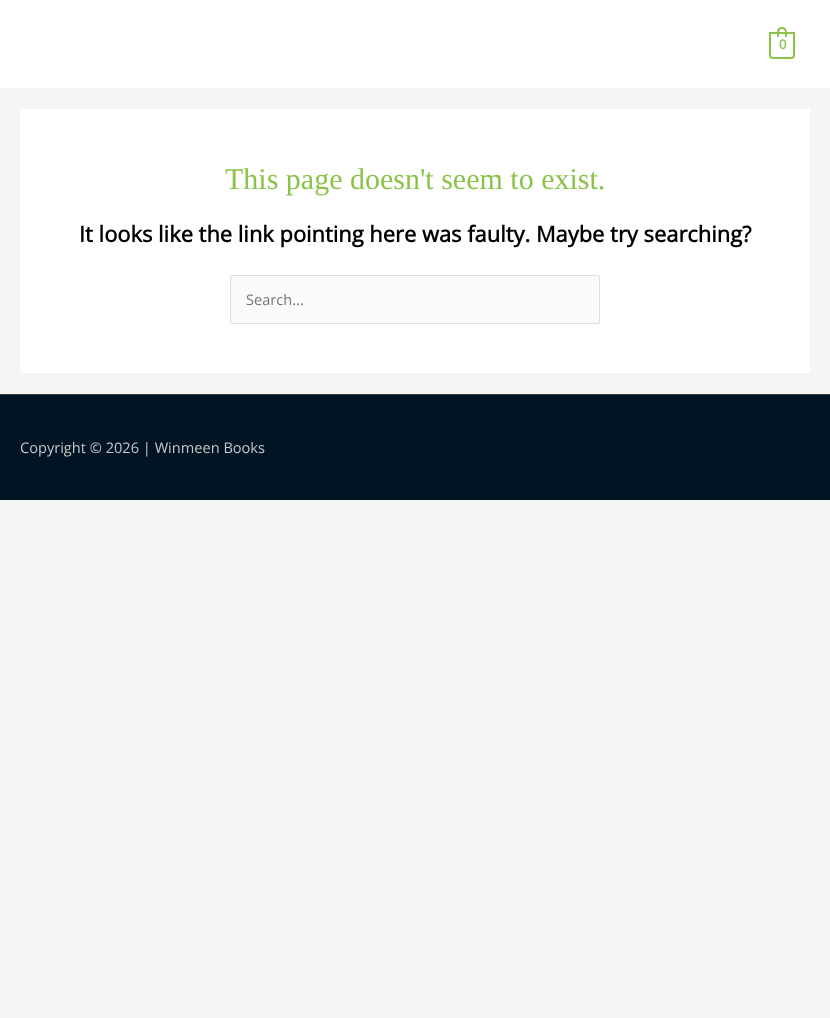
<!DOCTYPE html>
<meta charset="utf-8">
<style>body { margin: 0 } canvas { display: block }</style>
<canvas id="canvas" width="830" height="1018"></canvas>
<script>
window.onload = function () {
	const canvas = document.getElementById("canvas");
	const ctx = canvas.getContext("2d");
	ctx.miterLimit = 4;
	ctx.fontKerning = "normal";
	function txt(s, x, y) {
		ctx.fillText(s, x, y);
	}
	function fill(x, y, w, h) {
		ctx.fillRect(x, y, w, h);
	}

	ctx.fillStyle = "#F5F5F5";
	fill(0, 0, 830, 1018);
	ctx.fillStyle = "#FFFFFF";
	fill(0, 0, 830, 88);
	ctx.beginPath();
	ctx.roundRect(770, 33, 24, 25, [0, 0, 3, 3]);
	ctx.strokeStyle = "#8BC34A";
	ctx.lineWidth = 2;
	ctx.stroke();
	ctx.fillStyle = "#8BC34A";
	ctx.beginPath();
	ctx.moveTo(782, 27);
	ctx.bezierCurveTo(787.5, 27, 787, 33, 787, 37);
	ctx.lineTo(777, 37);
	ctx.bezierCurveTo(777, 33, 776, 27, 782, 27);
	ctx.closePath();
	ctx.moveTo(782, 29);
	ctx.bezierCurveTo(786, 29, 785, 34.5, 785, 37);
	ctx.lineTo(779, 37);
	ctx.bezierCurveTo(779, 34.5, 778, 29, 782, 29);
	ctx.closePath();
	ctx.fill("evenodd");
	ctx.fillStyle = "#FFFFFF";
	fill(20, 109, 790, 264);
	ctx.fillStyle = "#FAFAFA";
	ctx.beginPath();
	ctx.roundRect(230.5, 275.5, 369, 48, 1.5);
	ctx.fill();
	ctx.strokeStyle = "#DDDDDD";
	ctx.lineWidth = 1;
	ctx.stroke();
	ctx.fillStyle = "#3F3F3F";
	fill(0, 394, 830, 1);
	ctx.fillStyle = "#001524";
	fill(0, 395, 830, 105);
	ctx.font = "bold 13px Open Sans";
	ctx.fillStyle = "#8BC34A";
	txt("0", 779, 49);
	ctx.font = "30px Liberation Serif";
	txt("This page doesn't seem to exist.", 225, 189);
	ctx.font = "bold 21.9px Open Sans";
	ctx.fillStyle = "#000000";
	txt("It looks like the link pointing here was faulty. Maybe try searching?", 79, 242);
	ctx.font = "14.6px Open Sans";
	ctx.fillStyle = "#757575";
	txt("Search...", 246, 305);
	ctx.fillStyle = "#C6C6C6";
	txt("Copyright © 2026 | Winmeen Books", 20, 453);
};
</script>
